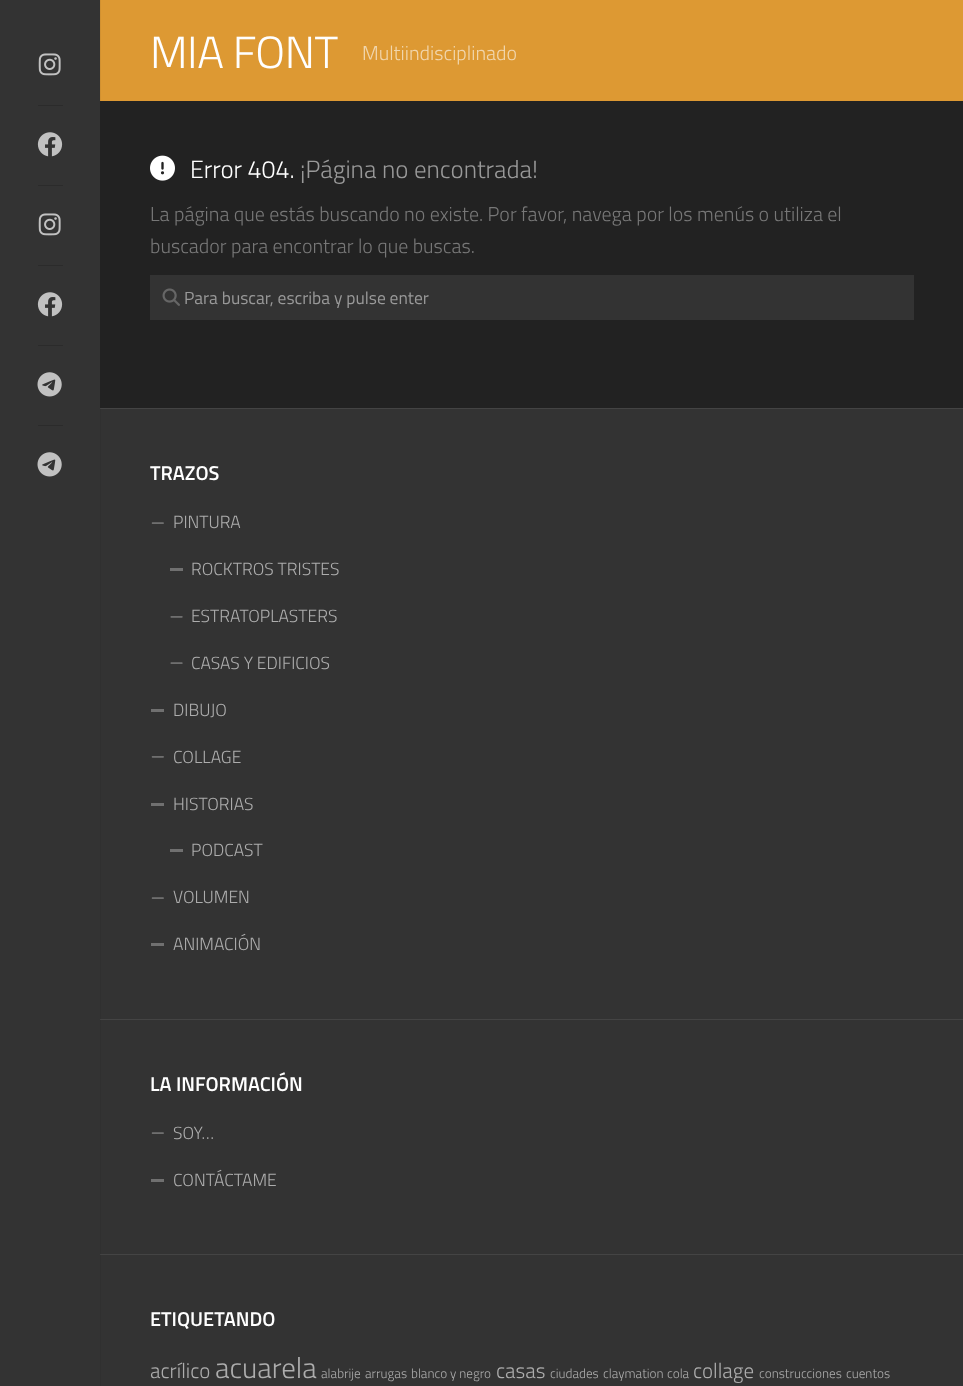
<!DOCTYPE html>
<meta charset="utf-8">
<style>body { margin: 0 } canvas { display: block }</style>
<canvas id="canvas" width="963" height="1386"></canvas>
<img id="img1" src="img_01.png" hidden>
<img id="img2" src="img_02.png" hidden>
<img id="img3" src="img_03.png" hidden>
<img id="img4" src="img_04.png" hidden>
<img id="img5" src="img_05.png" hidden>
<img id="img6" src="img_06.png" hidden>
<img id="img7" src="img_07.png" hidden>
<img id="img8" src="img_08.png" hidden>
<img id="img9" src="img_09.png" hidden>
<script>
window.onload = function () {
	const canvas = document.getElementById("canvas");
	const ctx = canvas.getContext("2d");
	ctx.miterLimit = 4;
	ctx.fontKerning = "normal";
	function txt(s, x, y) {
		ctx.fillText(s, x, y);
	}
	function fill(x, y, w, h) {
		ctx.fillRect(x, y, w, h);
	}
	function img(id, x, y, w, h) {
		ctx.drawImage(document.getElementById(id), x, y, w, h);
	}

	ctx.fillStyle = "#222222";
	fill(0, 0, 963, 1386);
	ctx.fillStyle = "#DD9933";
	fill(101, 0, 862, 101);
	ctx.fillStyle = "#D29130";
	fill(100, 0, 1, 101);
	ctx.fillStyle = "#333333";
	fill(0, 0, 100, 1386);
	img("img1", 38, 53, 23, 23);
	ctx.fillStyle = "#2B2B2B";
	fill(38, 105, 25, 1);
	img("img2", 37, 132, 26, 25);
	fill(38, 185, 25, 1);
	img("img1", 38, 213, 23, 23);
	fill(38, 265, 25, 1);
	img("img2", 37, 292, 26, 25);
	fill(38, 345, 25, 1);
	img("img3", 37, 372, 25, 25);
	fill(38, 425, 25, 1);
	img("img3", 37, 452, 25, 25);
	img("img4", 150, 155, 25, 26);
	ctx.fillStyle = "#333333";
	fill(150, 275, 764, 45);
	img("img5", 162, 288, 18, 18);
	fill(101, 409, 862, 610);
	ctx.fillStyle = "#303030";
	fill(100, 408, 1, 978);
	ctx.fillStyle = "#444444";
	fill(100, 408, 863, 1);
	ctx.fillStyle = "#414141";
	fill(100, 408, 1, 1);
	img("img6", 151, 522, 13, 2);
	ctx.fillStyle = "#707070";
	fill(170, 568, 13, 3);
	img("img7", 170, 616, 13, 2);
	img("img8", 170, 662, 13, 2);
	fill(151, 709, 13, 3);
	img("img9", 151, 756, 13, 2);
	fill(151, 803, 13, 3);
	fill(170, 849, 13, 3);
	img("img6", 151, 897, 13, 2);
	fill(151, 943, 13, 3);
	ctx.fillStyle = "#333333";
	fill(101, 1020, 862, 234);
	ctx.fillStyle = "#444444";
	fill(100, 1019, 863, 1);
	ctx.fillStyle = "#414141";
	fill(100, 1019, 1, 1);
	img("img6", 151, 1132, 13, 2);
	ctx.fillStyle = "#707070";
	fill(151, 1179, 13, 3);
	ctx.fillStyle = "#333333";
	fill(101, 1255, 862, 131);
	ctx.fillStyle = "#444444";
	fill(100, 1254, 863, 1);
	ctx.fillStyle = "#414141";
	fill(100, 1254, 1, 1);
	ctx.letterSpacing = "-0.5px";
	ctx.font = "300 45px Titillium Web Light";
	ctx.fillStyle = "#FFFFFF";
	txt("MIA FONT", 150, 68);
	ctx.letterSpacing = "0px";
	ctx.font = "300 20px Titillium Web Light";
	ctx.fillStyle = "#F1D6AD";
	txt("Multiindisciplinado", 362, 60);
	ctx.font = "300 25px Titillium Web Light";
	ctx.fillStyle = "#FFFFFF";
	txt("Error 404.", 190, 178);
	ctx.fillStyle = "#999999";
	txt("¡Página no encontrada!", 300, 178);
	ctx.font = "300 20px Titillium Web Light";
	ctx.fillStyle = "#777777";
	txt("La página que estás buscando no existe. Por favor, navega por los menús o utiliza el", 150, 221);
	txt("buscador para encontrar lo que buscas.", 150, 253);
	ctx.font = "17.5px Titillium Web";
	ctx.fillStyle = "#999999";
	txt("Para buscar, escriba y pulse enter", 184, 304);
	ctx.font = "600 20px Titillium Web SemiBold";
	ctx.fillStyle = "#FFFFFF";
	txt("TRAZOS", 150, 480);
	ctx.font = "300 17.5px Titillium Web Light";
	ctx.fillStyle = "#ADADAD";
	txt("PINTURA", 173, 528);
	txt("ROCKTROS TRISTES", 191, 575);
	txt("ESTRATOPLASTERS", 191, 622);
	txt("CASAS Y EDIFICIOS", 191, 669);
	txt("DIBUJO", 173, 716);
	txt("COLLAGE", 173, 763);
	txt("HISTORIAS", 173, 810);
	txt("PODCAST", 191, 856);
	txt("VOLUMEN", 173, 903);
	txt("ANIMACIÓN", 173, 950);
	ctx.font = "600 20px Titillium Web SemiBold";
	ctx.fillStyle = "#FFFFFF";
	txt("LA INFORMACIÓN", 150, 1091);
	ctx.font = "300 17.5px Titillium Web Light";
	ctx.fillStyle = "#ADADAD";
	txt("SOY…", 173, 1139);
	txt("CONTÁCTAME", 173, 1186);
	ctx.font = "600 20px Titillium Web SemiBold";
	ctx.fillStyle = "#FFFFFF";
	txt("ETIQUETANDO", 150, 1326);
	ctx.font = "300 21px Titillium Web Light";
	ctx.fillStyle = "#ADADAD";
	txt("acrílico", 150, 1378);
	ctx.font = "300 29px Titillium Web Light";
	txt("acuarela", 215, 1378);
	ctx.font = "300 13.25px Titillium Web Light";
	txt("alabrije", 321, 1378);
	txt("arrugas", 365, 1378);
	txt("blanco y negro", 411, 1378);
	ctx.font = "300 21px Titillium Web Light";
	txt("casas", 496, 1378);
	ctx.font = "300 13.25px Titillium Web Light";
	txt("ciudades", 550, 1378);
	txt("claymation", 603, 1378);
	txt("cola", 667, 1378);
	ctx.font = "300 21px Titillium Web Light";
	txt("collage", 693, 1378);
	ctx.font = "300 13.25px Titillium Web Light";
	txt("construcciones", 759, 1378);
	txt("cuentos", 846, 1378);
};
</script>
